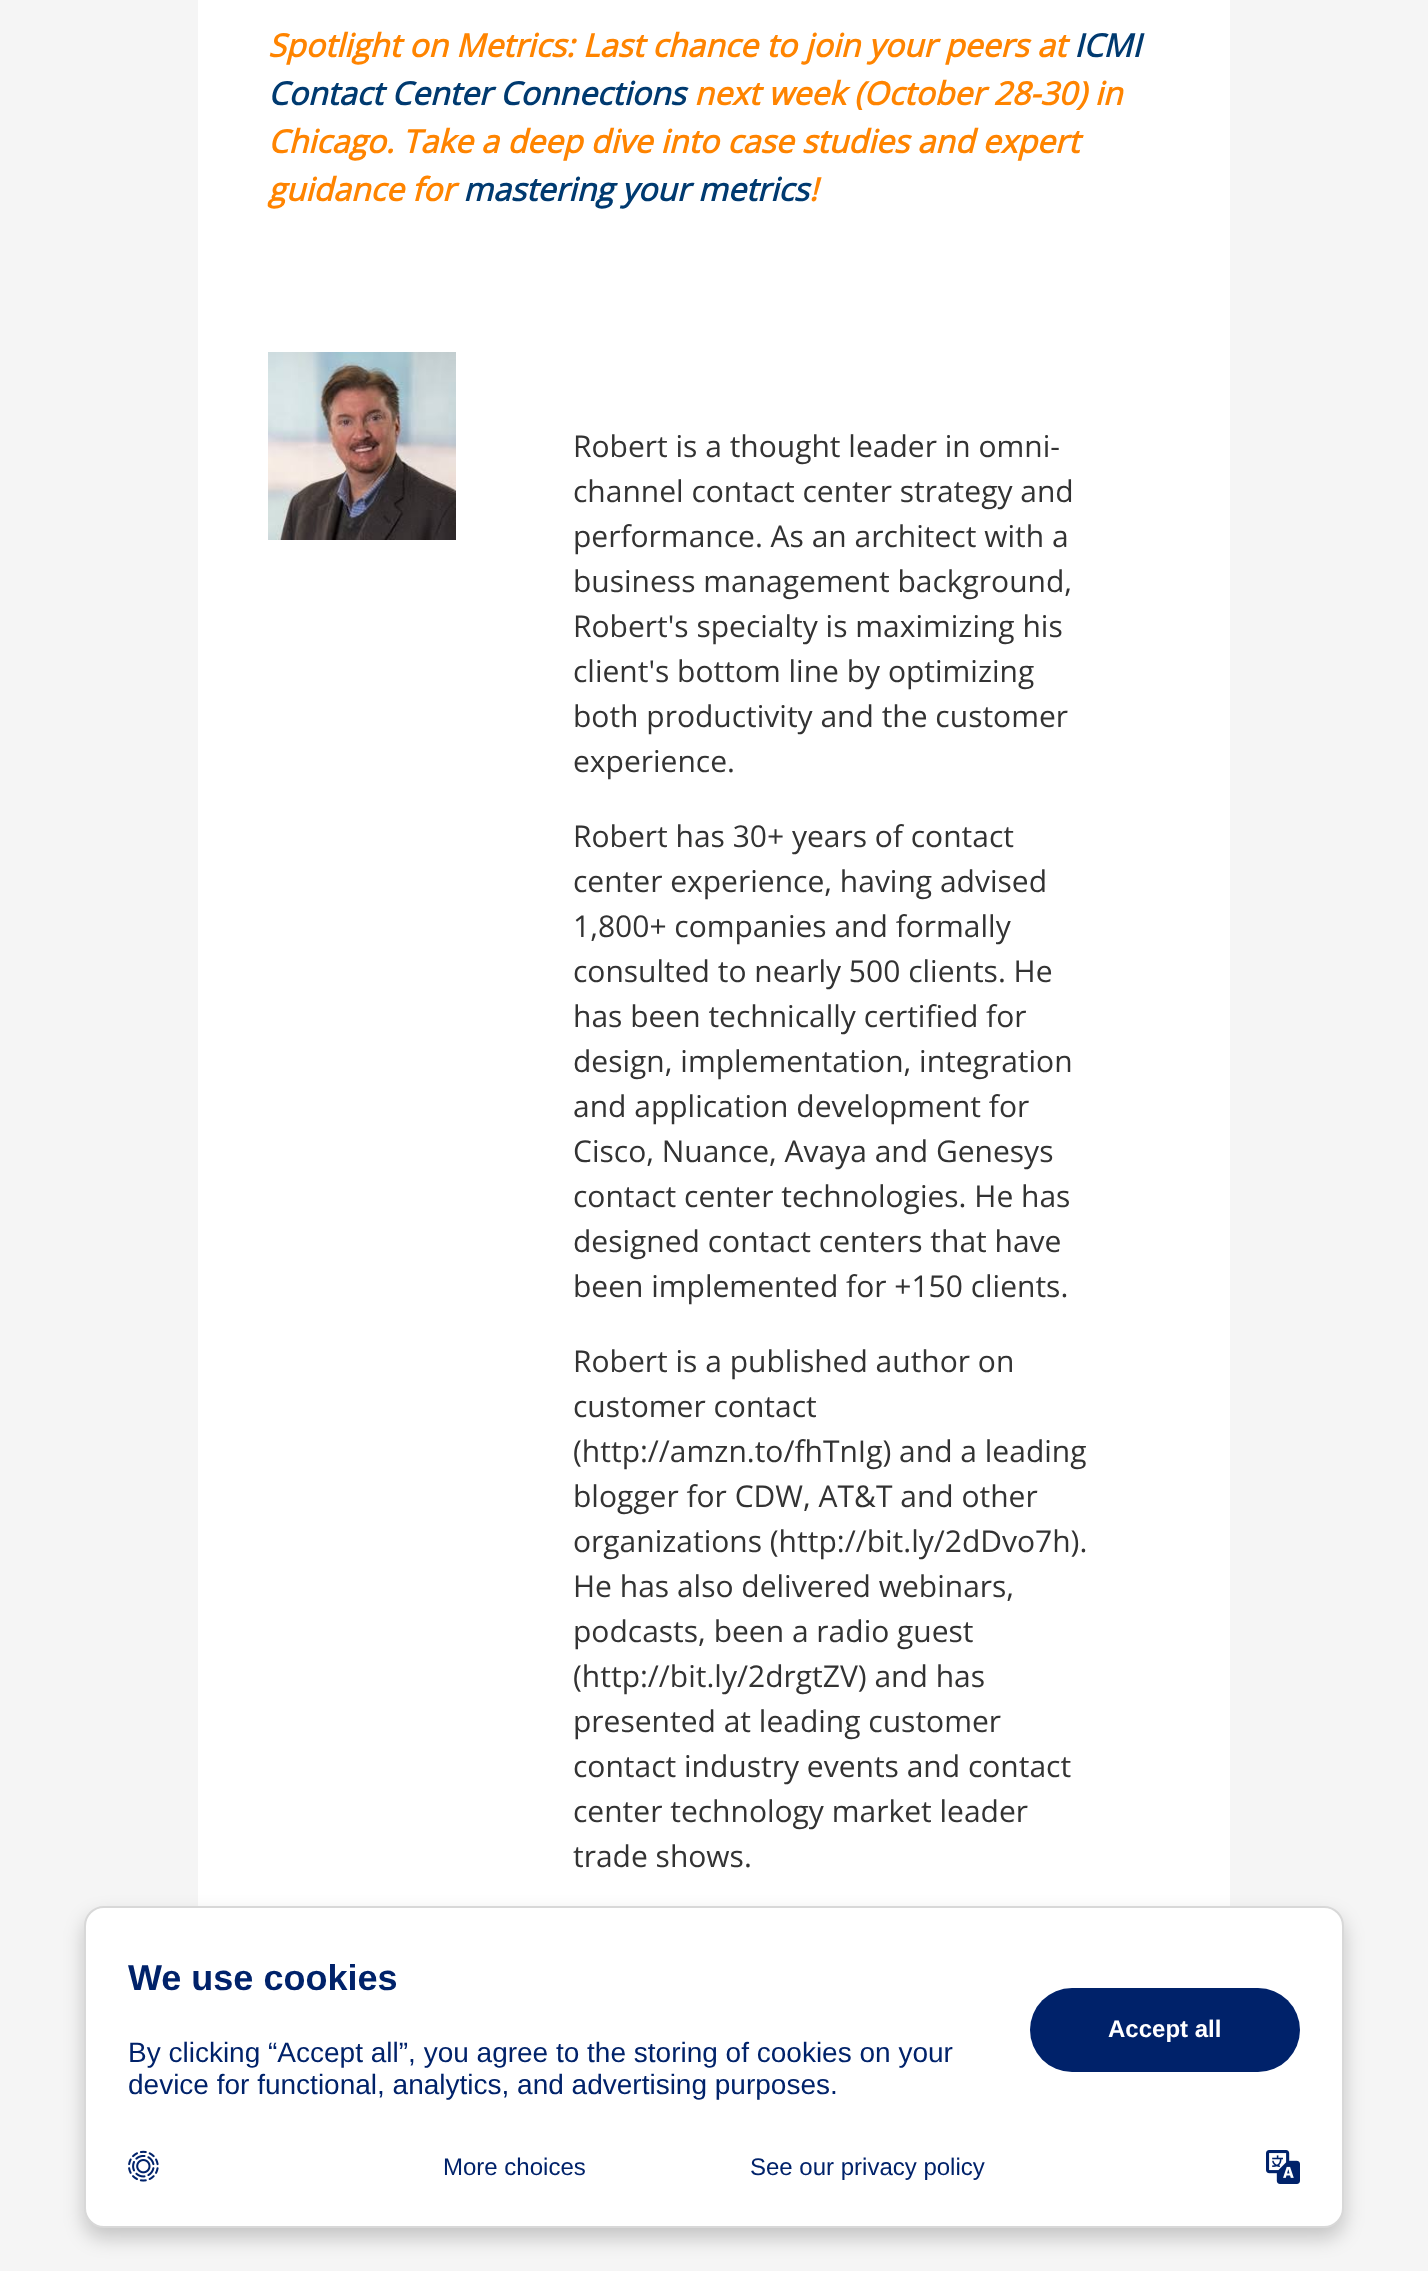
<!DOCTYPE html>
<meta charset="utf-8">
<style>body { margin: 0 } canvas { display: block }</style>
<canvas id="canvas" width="1428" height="2271"></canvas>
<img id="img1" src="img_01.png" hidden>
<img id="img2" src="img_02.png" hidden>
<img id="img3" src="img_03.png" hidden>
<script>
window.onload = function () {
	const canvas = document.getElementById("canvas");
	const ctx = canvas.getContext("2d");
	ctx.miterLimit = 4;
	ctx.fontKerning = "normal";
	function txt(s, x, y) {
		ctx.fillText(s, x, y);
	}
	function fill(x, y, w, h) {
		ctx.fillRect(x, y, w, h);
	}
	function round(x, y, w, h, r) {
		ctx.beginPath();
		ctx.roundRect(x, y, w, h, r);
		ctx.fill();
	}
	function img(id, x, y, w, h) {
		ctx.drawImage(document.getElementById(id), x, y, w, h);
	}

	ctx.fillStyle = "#F5F5F5";
	fill(0, 0, 1428, 2271);
	ctx.fillStyle = "#FFFFFF";
	fill(198, 0, 1032, 1906);
	img("img1", 268, 352, 188, 188);
	ctx.fillStyle = "rgba(0, 0, 0, 0.2)";
	ctx.filter = "blur(10px)";
	ctx.beginPath();
	ctx.roundRect(84, 1916, 1260, 322, 20);
	ctx.fill();
	ctx.filter = "none";
	ctx.fillStyle = "#FFFFFF";
	ctx.beginPath();
	ctx.roundRect(85, 1907, 1258, 320, 19);
	ctx.fill();
	ctx.strokeStyle = "#D8D8D8";
	ctx.lineWidth = 2;
	ctx.stroke();
	ctx.fillStyle = "#00226A";
	round(1030, 1988, 270, 84, 42);
	img("img2", 128, 2150, 31, 32);
	img("img3", 1266, 2150, 34, 34);
	ctx.font = "italic bold 32px Open Sans";
	ctx.fillStyle = "#FF8400";
	txt("Spotlight on Metrics: Last chance to join your peers at", 268, 57);
	ctx.fillStyle = "#003A70";
	txt("ICMI", 1074, 57);
	txt("Contact Center Connections", 268, 105);
	ctx.fillStyle = "#FF8400";
	txt("next week (October 28-30) in", 694, 105);
	txt("Chicago. Take a deep dive into case studies and expert", 268, 153);
	txt("guidance for", 268, 201);
	ctx.fillStyle = "#003A70";
	txt("mastering your metrics", 463, 201);
	ctx.fillStyle = "#FF8400";
	txt("!", 809, 201);
	ctx.font = "30px Open Sans";
	ctx.fillStyle = "#333333";
	txt("Robert is a thought leader in omni-", 573, 457);
	txt("channel contact center strategy and", 573, 502);
	txt("performance. As an architect with a", 573, 547);
	txt("business management background,", 573, 592);
	txt("Robert's specialty is maximizing his", 573, 637);
	txt("client's bottom line by optimizing", 573, 682);
	txt("both productivity and the customer", 573, 727);
	txt("experience.", 573, 772);
	txt("Robert has 30+ years of contact", 573, 847);
	txt("center experience, having advised", 573, 892);
	txt("1,800+ companies and formally", 573, 937);
	txt("consulted to nearly 500 clients. He", 573, 982);
	txt("has been technically certified for", 573, 1027);
	txt("design, implementation, integration", 573, 1072);
	txt("and application development for", 573, 1117);
	txt("Cisco, Nuance, Avaya and Genesys", 573, 1162);
	txt("contact center technologies. He has", 573, 1207);
	txt("designed contact centers that have", 573, 1252);
	txt("been implemented for +150 clients.", 573, 1297);
	txt("Robert is a published author on", 573, 1372);
	txt("customer contact", 573, 1417);
	txt("(http://amzn.to/fhTnIg) and a leading", 573, 1462);
	txt("blogger for CDW, AT&T and other", 573, 1507);
	txt("organizations (http://bit.ly/2dDvo7h).", 573, 1552);
	txt("He has also delivered webinars,", 573, 1597);
	txt("podcasts, been a radio guest", 573, 1642);
	txt("(http://bit.ly/2drgtZV) and has", 573, 1687);
	txt("presented at leading customer", 573, 1732);
	txt("contact industry events and contact", 573, 1777);
	txt("center technology market leader", 573, 1822);
	txt("trade shows.", 573, 1867);
	ctx.font = "bold 36px Liberation Sans";
	ctx.fillStyle = "#00226A";
	txt("We use cookies", 128, 1990);
	ctx.font = "28px Liberation Sans";
	txt("By clicking “Accept all”, you agree to the storing of cookies on your", 128, 2062);
	txt("device for functional, analytics, and advertising purposes.", 128, 2094);
	ctx.font = "bold 24px Liberation Sans";
	ctx.fillStyle = "#FFFFFF";
	txt("Accept all", 1108, 2037);
	ctx.font = "24px Liberation Sans";
	ctx.fillStyle = "#00226A";
	txt("More choices", 443, 2175);
	txt("See our privacy policy", 750, 2175);
};
</script>
